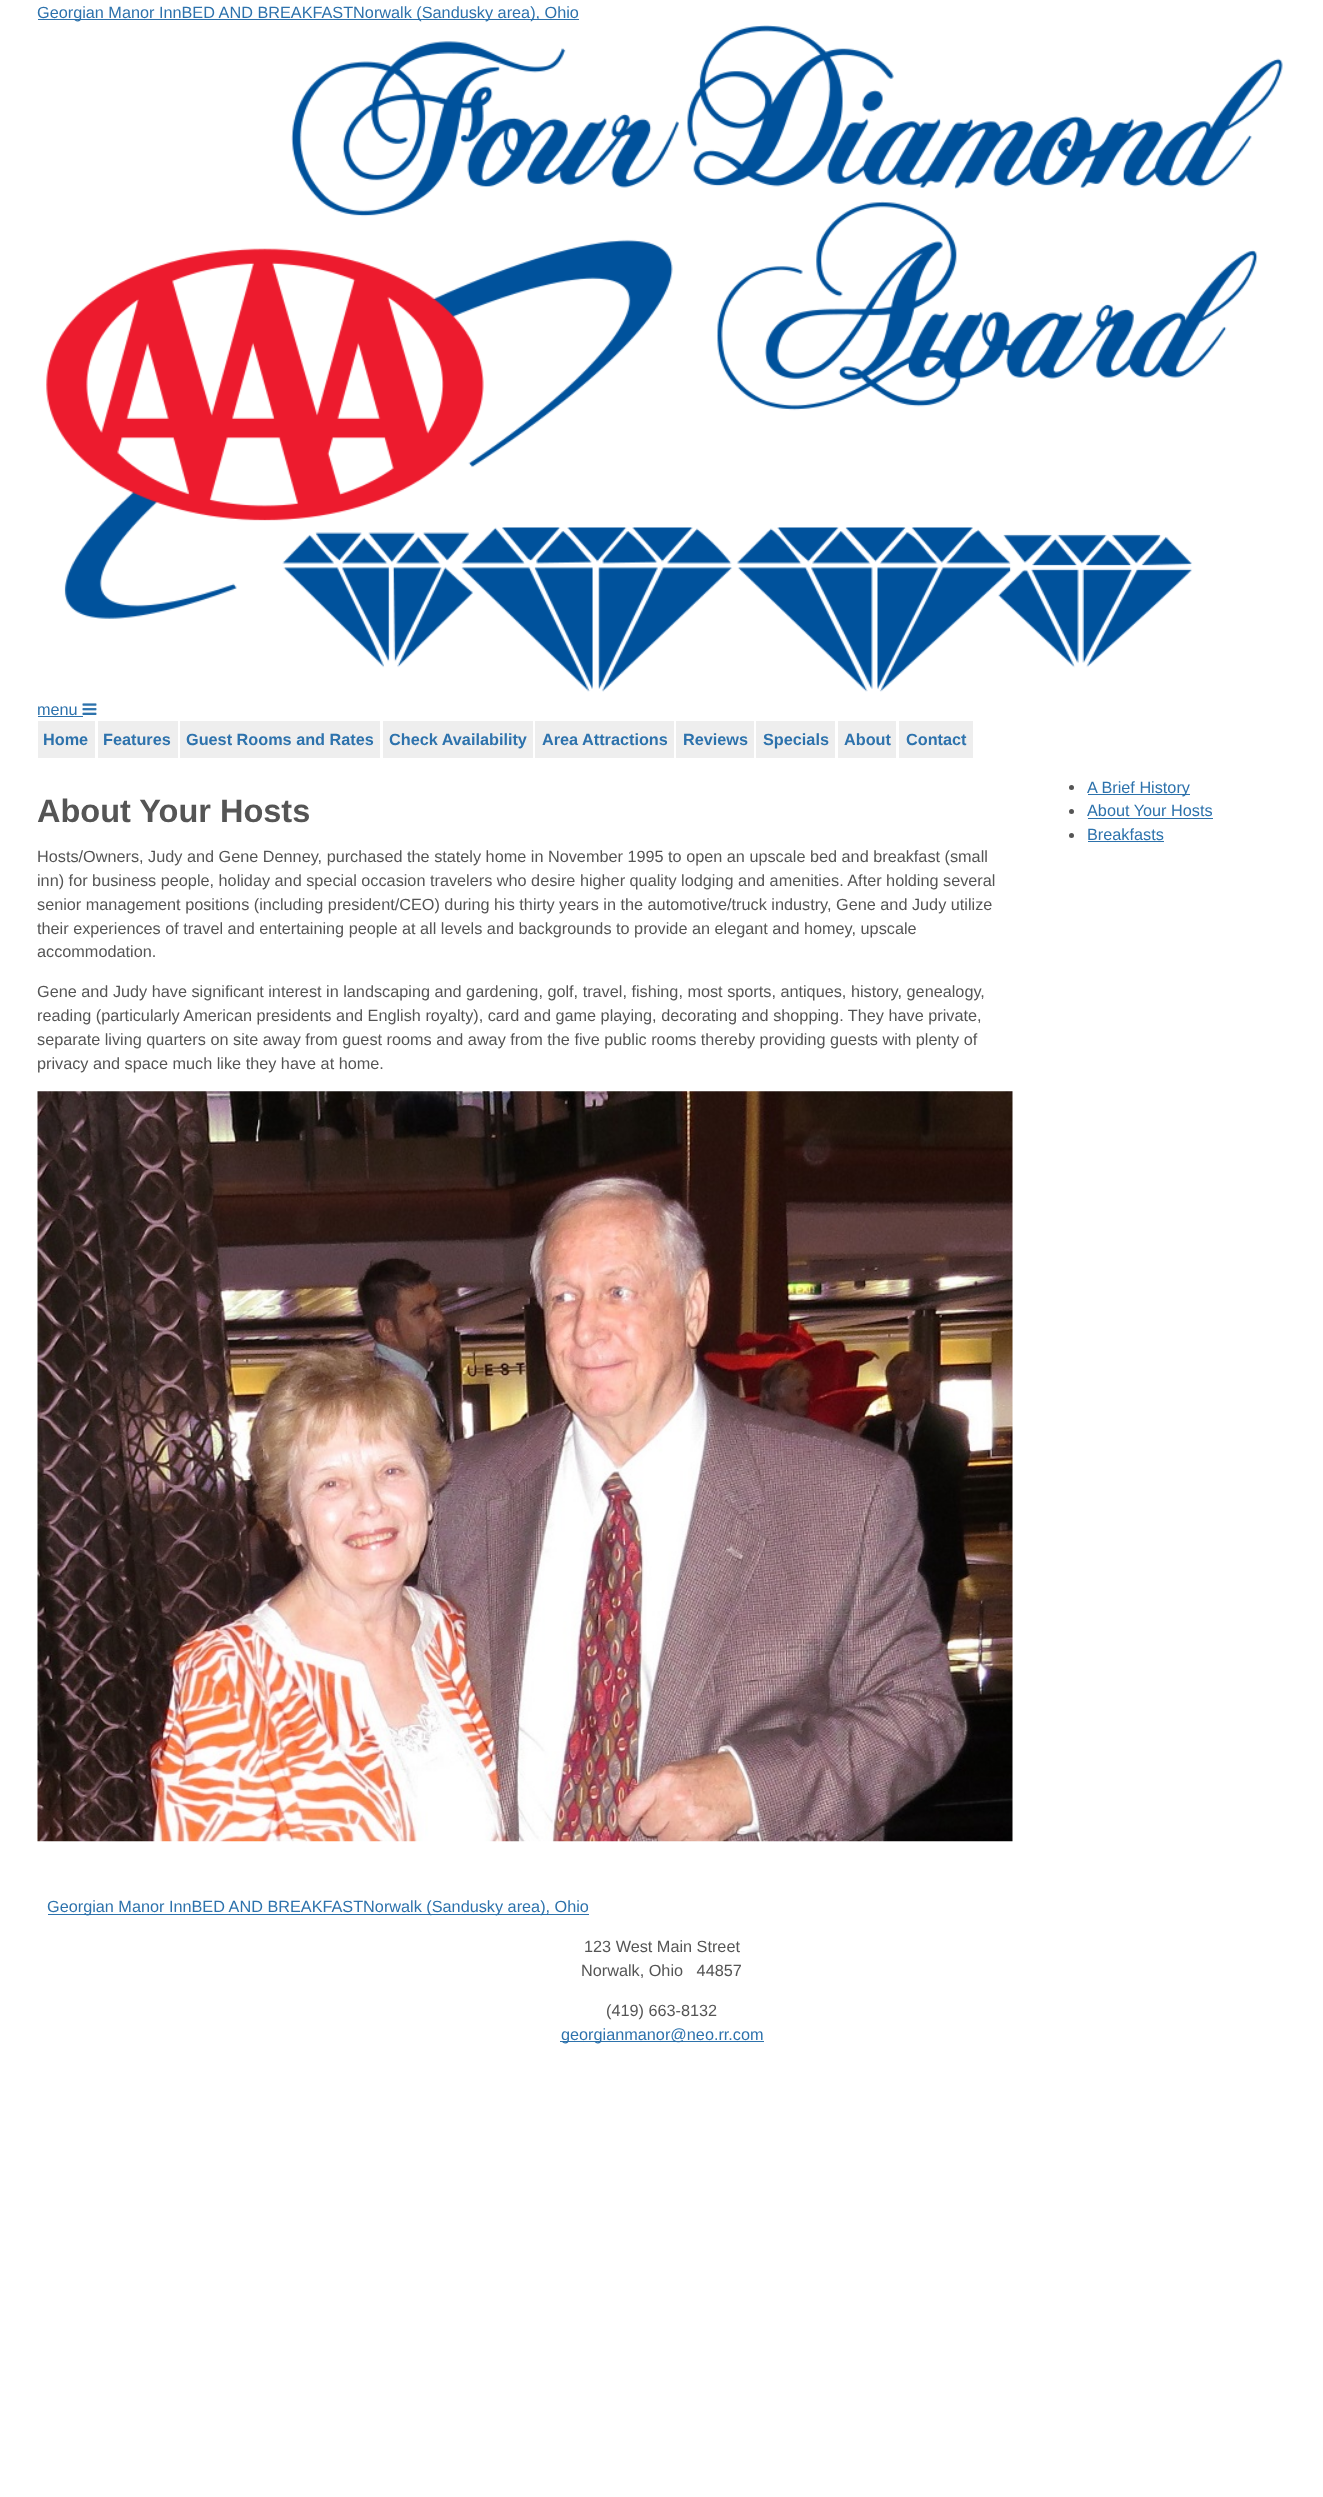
<!DOCTYPE html>
<meta charset="utf-8">
<style>body { margin: 0 } canvas { display: block }</style>
<canvas id="canvas" width="1323" height="2497"></canvas>
<img id="img1" src="img_01.png" hidden>
<img id="img2" src="img_02.png" hidden>
<img id="img3" src="img_03.png" hidden>
<script>
window.onload = function () {
	const canvas = document.getElementById("canvas");
	const ctx = canvas.getContext("2d");
	ctx.miterLimit = 4;
	ctx.fontKerning = "normal";
	function txt(s, x, y) {
		ctx.fillText(s, x, y);
	}
	function fill(x, y, w, h) {
		ctx.fillRect(x, y, w, h);
	}
	function img(id, x, y, w, h) {
		ctx.drawImage(document.getElementById(id), x, y, w, h);
	}

	ctx.fillStyle = "#FFFFFF";
	fill(0, 0, 1323, 2497);
	ctx.fillStyle = "#2D72AC";
	fill(38, 19, 541, 1);
	img("img1", 46, 25, 1237, 667);
	fill(38, 716, 45, 1);
	img("img2", 82, 703, 15, 12);
	ctx.fillStyle = "#EEEEEE";
	fill(38, 721, 57, 37);
	fill(98, 721, 80, 37);
	fill(180, 721, 200, 37);
	fill(383, 721, 150, 37);
	fill(535, 721, 139, 37);
	fill(676, 721, 78, 37);
	fill(756, 721, 79, 37);
	fill(838, 721, 58, 37);
	fill(899, 721, 74, 37);
	img("img3", 37, 1091, 976, 751);
	ctx.fillStyle = "#555555";
	ctx.beginPath();
	ctx.arc(1071.5, 787.5, 2.5, 0, Math.PI * 2);
	ctx.fill();
	ctx.fillStyle = "#2D72AC";
	fill(1088, 794, 102, 1);
	ctx.fillStyle = "#555555";
	ctx.beginPath();
	ctx.arc(1071.5, 811.5, 2.5, 0, Math.PI * 2);
	ctx.fill();
	ctx.fillStyle = "#2D72AC";
	fill(1088, 818, 125, 1);
	ctx.fillStyle = "#555555";
	ctx.beginPath();
	ctx.arc(1071.5, 835.5, 2.5, 0, Math.PI * 2);
	ctx.fill();
	ctx.fillStyle = "#2D72AC";
	fill(1088, 841, 76, 1);
	fill(48, 1914, 541, 1);
	fill(560, 2041, 204, 1);
	ctx.font = "16.25px Liberation Sans";
	txt("Georgian Manor InnBED AND BREAKFASTNorwalk (Sandusky area), Ohio", 37, 18);
	txt("menu", 37, 715);
	ctx.font = "bold 16.25px Liberation Sans";
	txt("Home", 43, 745);
	txt("Features", 103, 745);
	txt("Guest Rooms and Rates", 186, 745);
	txt("Check Availability", 389, 745);
	txt("Area Attractions", 542, 745);
	txt("Reviews", 683, 745);
	txt("Specials", 763, 745);
	txt("About", 844, 745);
	txt("Contact", 906, 745);
	ctx.font = "bold 32.5px Liberation Sans";
	ctx.fillStyle = "#555555";
	txt("About Your Hosts", 37, 822);
	ctx.font = "16.25px Liberation Sans";
	txt("Hosts/Owners, Judy and Gene Denney, purchased the stately home in November 1995 to open an upscale bed and breakfast (small", 37, 862);
	txt("inn) for business people, holiday and special occasion travelers who desire higher quality lodging and amenities. After holding several", 37, 886);
	txt("senior management positions (including president/CEO) during his thirty years in the automotive/truck industry, Gene and Judy utilize", 37, 910);
	txt("their experiences of travel and entertaining people at all levels and backgrounds to provide an elegant and homey, upscale", 37, 934);
	txt("accommodation.", 37, 957);
	txt("Gene and Judy have significant interest in landscaping and gardening, golf, travel, fishing, most sports, antiques, history, genealogy,", 37, 997);
	txt("reading (particularly American presidents and English royalty), card and game playing, decorating and shopping. They have private,", 37, 1021);
	txt("separate living quarters on site away from guest rooms and away from the five public rooms thereby providing guests with plenty of", 37, 1045);
	txt("privacy and space much like they have at home.", 37, 1069);
	ctx.fillStyle = "#2D72AC";
	txt("A Brief History", 1087, 793);
	txt("About Your Hosts", 1087, 816);
	txt("Breakfasts", 1087, 840);
	txt("Georgian Manor InnBED AND BREAKFASTNorwalk (Sandusky area), Ohio", 47, 1912);
	ctx.fillStyle = "#555555";
	txt("123 West Main Street", 584, 1952);
	txt("Norwalk, Ohio   44857", 581, 1976);
	txt("(419) 663-8132", 606, 2016);
	ctx.fillStyle = "#2D72AC";
	txt("georgianmanor@neo.rr.com", 561, 2040);
};
</script>
